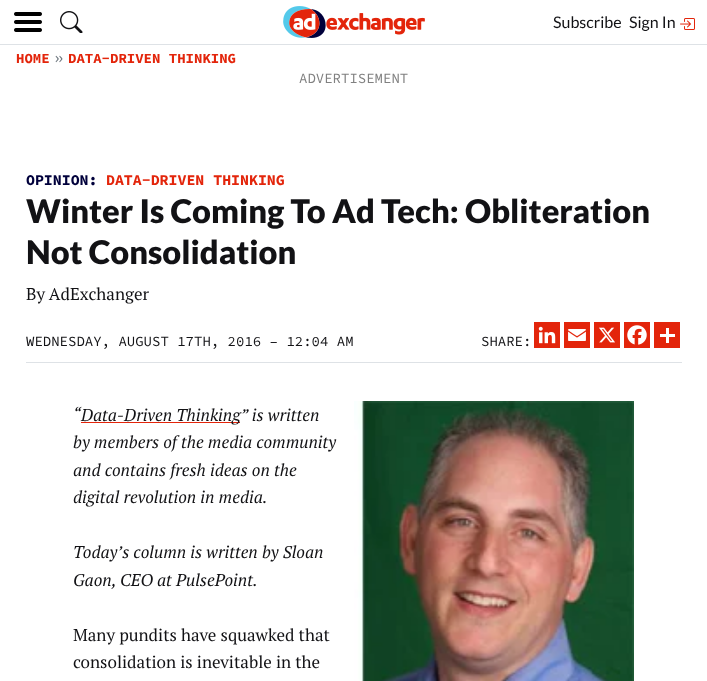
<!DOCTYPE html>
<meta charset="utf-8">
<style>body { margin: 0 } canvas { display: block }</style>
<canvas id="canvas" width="707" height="681"></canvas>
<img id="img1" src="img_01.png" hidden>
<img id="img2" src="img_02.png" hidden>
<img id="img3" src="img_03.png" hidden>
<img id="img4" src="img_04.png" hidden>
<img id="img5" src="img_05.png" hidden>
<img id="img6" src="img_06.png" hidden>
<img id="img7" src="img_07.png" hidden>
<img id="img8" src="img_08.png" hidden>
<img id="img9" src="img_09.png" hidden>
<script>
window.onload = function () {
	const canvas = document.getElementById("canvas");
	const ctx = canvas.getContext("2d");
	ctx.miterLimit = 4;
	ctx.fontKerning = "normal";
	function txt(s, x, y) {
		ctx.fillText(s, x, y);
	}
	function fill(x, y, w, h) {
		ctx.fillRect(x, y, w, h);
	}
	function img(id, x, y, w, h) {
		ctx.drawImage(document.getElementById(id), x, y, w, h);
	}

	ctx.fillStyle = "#FFFFFF";
	fill(0, 0, 707, 681);
	ctx.fillStyle = "#DEE2E6";
	fill(0, 44, 707, 1);
	img("img1", 14, 12, 28, 20);
	img("img2", 60, 11, 23, 22);
	img("img3", 283, 6, 142, 32);
	img("img4", 680, 18, 15, 12);
	fill(26, 362, 656, 1);
	ctx.fillStyle = "#E3250B";
	fill(534, 322, 26, 26);
	img("img5", 538, 326, 18, 18);
	fill(564, 322, 26, 26);
	img("img6", 568, 329, 18, 12);
	fill(594, 322, 26, 26);
	img("img7", 599, 327, 16, 16);
	fill(624, 322, 26, 26);
	img("img8", 627, 325, 20, 20);
	fill(654, 322, 26, 26);
	ctx.fillStyle = "#FFFFFF";
	fill(666, 328, 3, 15);
	fill(660, 334, 15, 3);
	img("img9", 354, 401, 280, 280);
	ctx.fillStyle = "#E3250B";
	fill(81, 422, 159, 1);
	ctx.font = "16px Lato";
	ctx.fillStyle = "#121215";
	txt("Subscribe", 553, 28);
	txt("Sign In", 629, 28);
	ctx.font = "bold 14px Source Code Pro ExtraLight";
	ctx.fillStyle = "#E3250B";
	txt("HOME", 16, 63);
	ctx.font = "16px Source Code Pro ExtraLight";
	ctx.fillStyle = "#6C757D";
	txt("»", 54, 63);
	ctx.font = "bold 14px Source Code Pro ExtraLight";
	ctx.fillStyle = "#E3250B";
	txt("DATA-DRIVEN THINKING", 68, 63);
	ctx.font = "14px Source Code Pro ExtraLight";
	ctx.fillStyle = "#808080";
	txt("ADVERTISEMENT", 299, 83);
	ctx.font = "bold 14.9px Source Code Pro ExtraLight";
	ctx.fillStyle = "#00003B";
	txt("OPINION:", 26, 185);
	ctx.fillStyle = "#E3250B";
	txt("DATA-DRIVEN THINKING", 106, 185);
	ctx.font = "900 32.6px Lato";
	ctx.fillStyle = "#121215";
	txt("Winter Is Coming To Ad Tech: Obliteration", 26, 223);
	txt("Not Consolidation", 26, 264);
	ctx.font = "17px PT Serif";
	txt("By AdExchanger", 26, 300);
	ctx.font = "14px Source Code Pro ExtraLight";
	txt("WEDNESDAY, AUGUST 17TH, 2016 – 12:04 AM", 26, 346);
	txt("SHARE:", 481, 346);
	ctx.font = "italic 17px PT Serif";
	txt("“", 73, 421);
	txt("Data-Driven Thinking” is written", 81, 421);
	txt("by members of the media community", 73, 448);
	txt("and contains fresh ideas on the", 73, 476);
	txt("digital revolution in media.", 73, 503);
	txt("Today’s column is written by Sloan", 73, 558);
	txt("Gaon, CEO at PulsePoint.", 73, 586);
	ctx.font = "17px PT Serif";
	txt("Many pundits have squawked that", 73, 641);
	txt("consolidation is inevitable in the", 73, 668);
};
</script>
